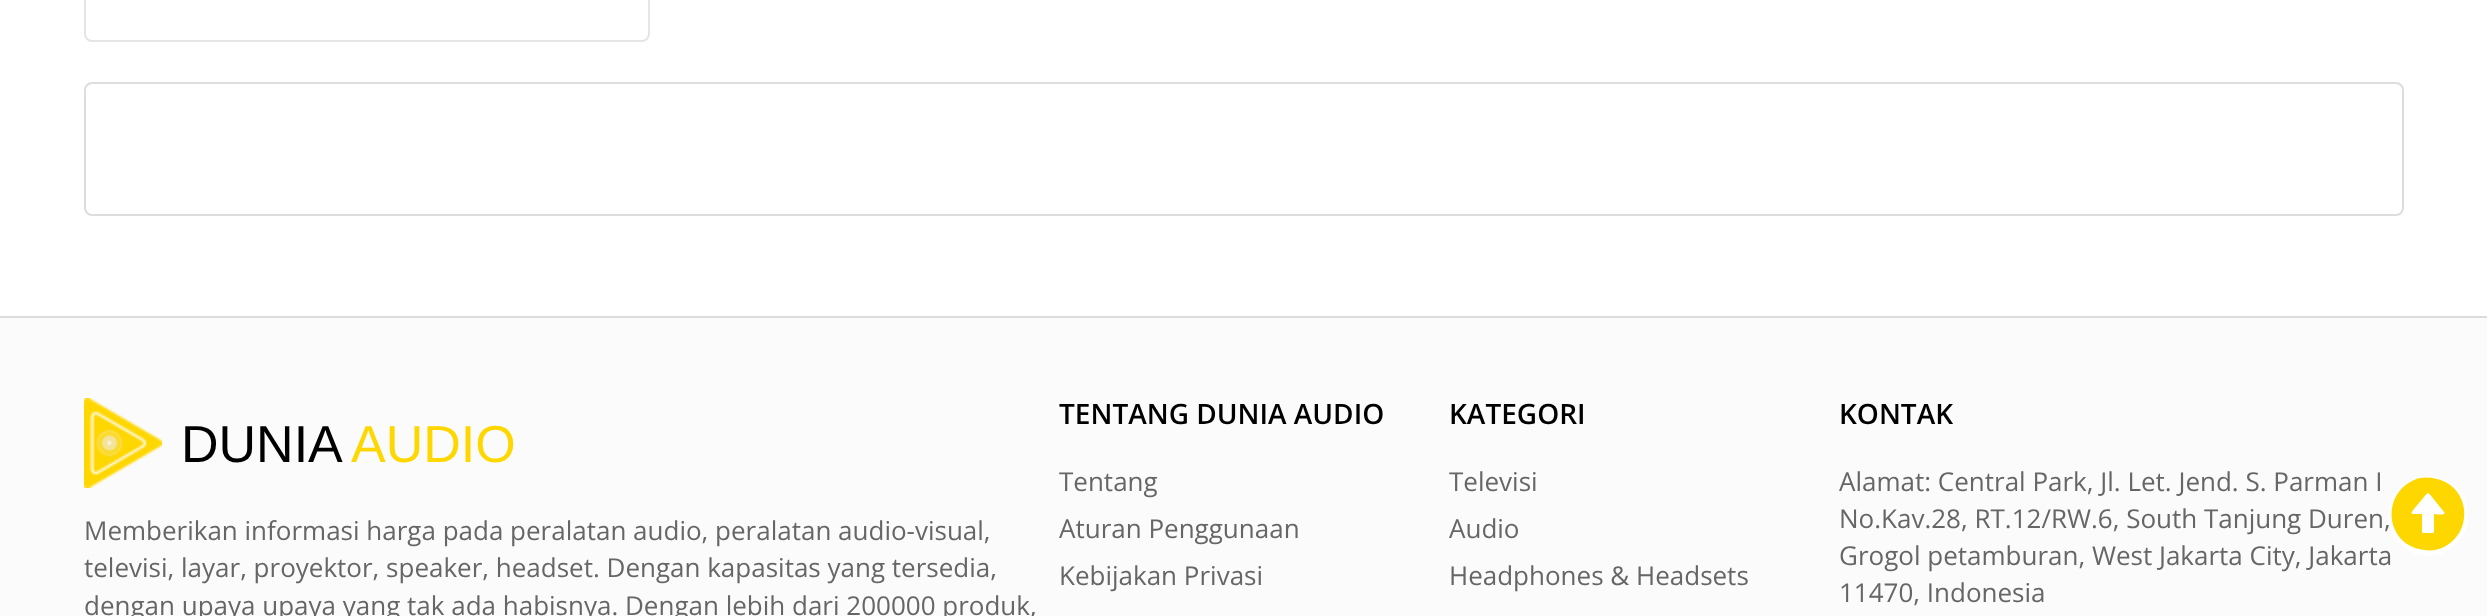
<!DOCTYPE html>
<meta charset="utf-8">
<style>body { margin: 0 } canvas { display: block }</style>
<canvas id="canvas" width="2487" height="616"></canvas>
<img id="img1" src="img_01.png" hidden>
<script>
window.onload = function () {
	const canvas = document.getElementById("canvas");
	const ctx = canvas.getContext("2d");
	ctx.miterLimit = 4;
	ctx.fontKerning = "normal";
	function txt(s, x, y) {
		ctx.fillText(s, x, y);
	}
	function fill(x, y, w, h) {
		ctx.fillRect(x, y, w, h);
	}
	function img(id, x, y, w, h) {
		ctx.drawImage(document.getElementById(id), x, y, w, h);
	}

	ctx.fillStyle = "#FFFFFF";
	fill(0, 0, 2487, 616);
	ctx.beginPath();
	ctx.roundRect(85, -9, 564, 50, 7);
	ctx.strokeStyle = "#E5E5E5";
	ctx.lineWidth = 2;
	ctx.stroke();
	ctx.beginPath();
	ctx.roundRect(85, 83, 2318, 132, 7);
	ctx.strokeStyle = "#DDDDDD";
	ctx.stroke();
	ctx.fillStyle = "#DCDCDC";
	fill(0, 316, 2487, 2);
	ctx.fillStyle = "#FBFBFB";
	fill(0, 318, 2487, 298);
	img("img1", 84, 398, 78, 90);
	ctx.font = "52px Liberation Sans";
	ctx.fillStyle = "#000000";
	txt("DUNIA", 181, 462);
	ctx.fillStyle = "#FED700";
	txt("AUDIO", 351, 462);
	ctx.font = "26px Open Sans";
	ctx.fillStyle = "#666666";
	txt("Memberikan informasi harga pada peralatan audio, peralatan audio-visual,", 84, 540);
	txt("televisi, layar, proyektor, speaker, headset. Dengan kapasitas yang tersedia,", 84, 577);
	txt("dengan upaya upaya yang tak ada habisnya. Dengan lebih dari 200000 produk,", 84, 615);
	ctx.font = "600 28px Open Sans";
	ctx.fillStyle = "#000000";
	txt("TENTANG DUNIA AUDIO", 1059, 424);
	ctx.font = "26px Open Sans";
	ctx.fillStyle = "#666666";
	txt("Tentang", 1059, 491);
	txt("Aturan Penggunaan", 1059, 538);
	txt("Kebijakan Privasi", 1059, 585);
	ctx.font = "600 28px Open Sans";
	ctx.fillStyle = "#000000";
	txt("KATEGORI", 1449, 424);
	ctx.font = "26px Open Sans";
	ctx.fillStyle = "#666666";
	txt("Televisi", 1449, 491);
	txt("Audio", 1449, 538);
	txt("Headphones & Headsets", 1449, 585);
	ctx.font = "600 28px Open Sans";
	ctx.fillStyle = "#000000";
	txt("KONTAK", 1839, 424);
	ctx.font = "26px Open Sans";
	ctx.fillStyle = "#666666";
	txt("Alamat: Central Park, Jl. Let. Jend. S. Parman I", 1839, 491);
	txt("No.Kav.28, RT.12/RW.6, South Tanjung Duren,", 1839, 528);
	txt("Grogol petamburan, West Jakarta City, Jakarta", 1839, 565);
	txt("11470, Indonesia", 1839, 602);
	ctx.fillStyle = "#FFFFFF";
	ctx.beginPath();
	ctx.arc(2428, 516, 40, 0, Math.PI * 2);
	ctx.fill();
	ctx.fillStyle = "#FED700";
	ctx.beginPath();
	ctx.moveTo(2414, 480);
	ctx.bezierCurveTo(2421, 477, 2429, 477, 2437, 479);
	ctx.bezierCurveTo(2471, 487, 2474, 534, 2442, 548);
	ctx.bezierCurveTo(2435, 551, 2427, 551, 2419, 549);
	ctx.bezierCurveTo(2385, 541, 2382, 494, 2414, 480);
	ctx.closePath();
	ctx.moveTo(2444, 512);
	ctx.lineTo(2432, 497);
	ctx.bezierCurveTo(2428, 492, 2428, 492, 2424, 497);
	ctx.lineTo(2419, 503);
	ctx.bezierCurveTo(2409, 515, 2408, 514, 2422, 514);
	ctx.lineTo(2422, 529);
	ctx.bezierCurveTo(2422, 534, 2422, 533, 2428, 533);
	ctx.bezierCurveTo(2434, 533, 2434, 534, 2434, 529);
	ctx.lineTo(2434, 514);
	ctx.bezierCurveTo(2435, 514, 2447, 516, 2444, 512);
	ctx.closePath();
	ctx.fill();
};
</script>
